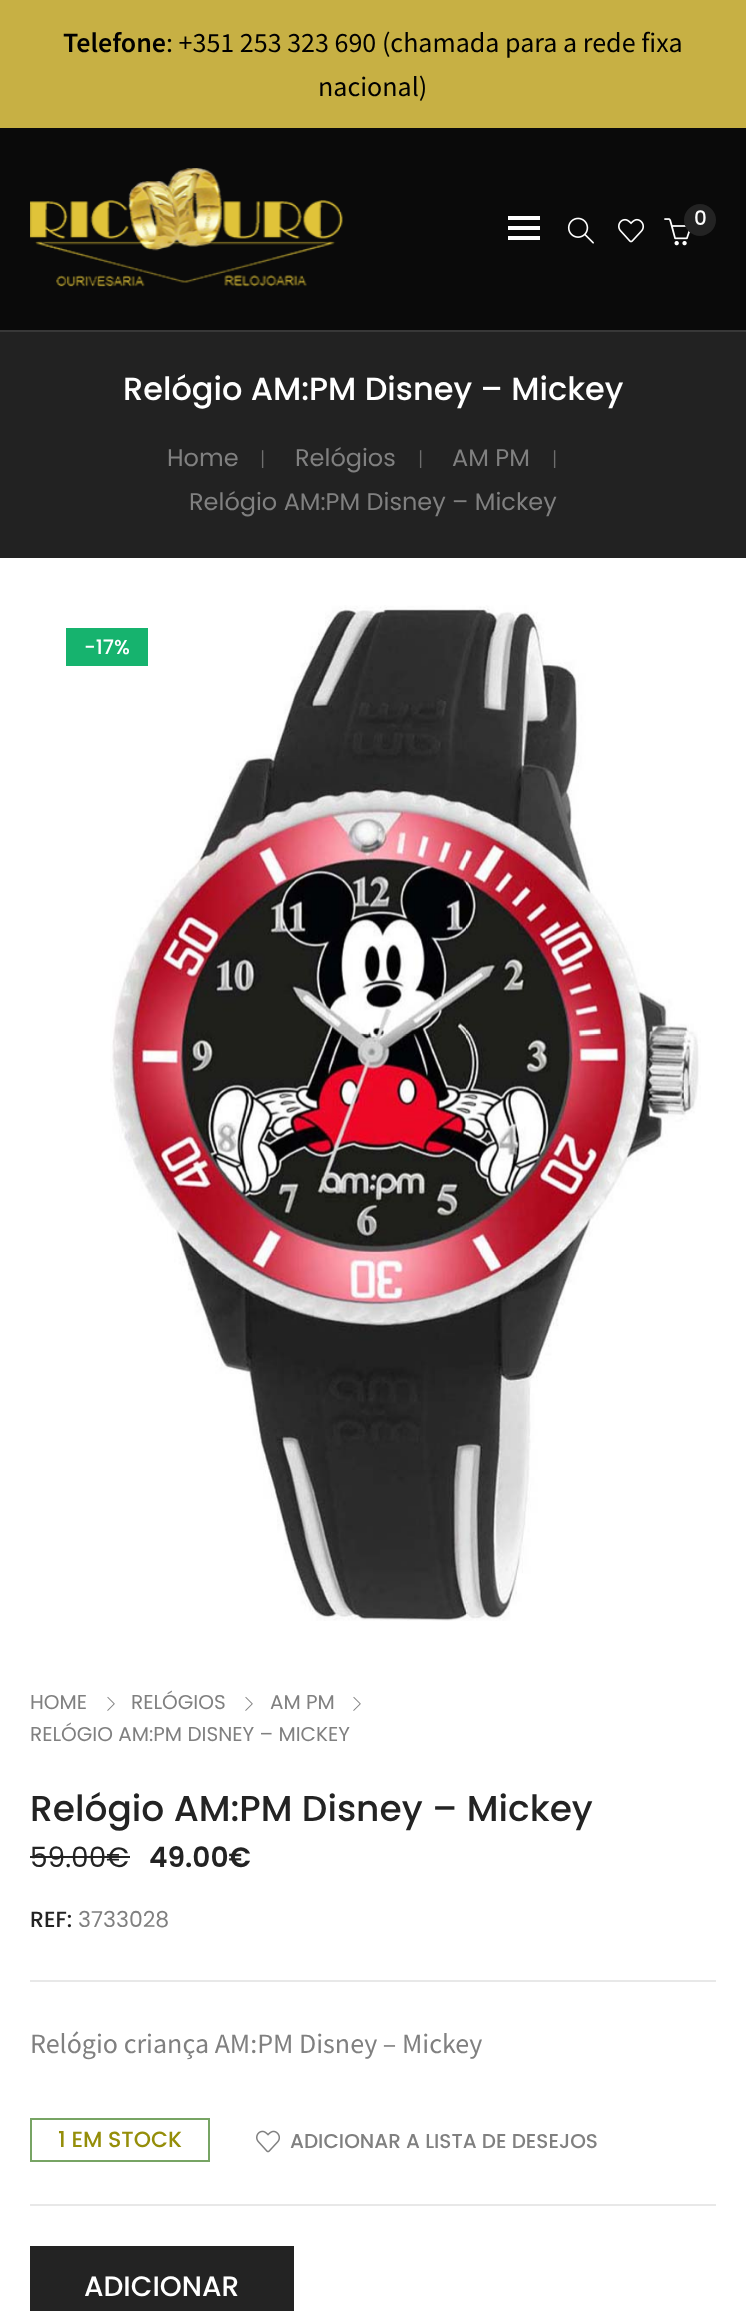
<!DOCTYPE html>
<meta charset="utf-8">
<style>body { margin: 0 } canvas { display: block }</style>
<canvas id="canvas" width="746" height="2311"></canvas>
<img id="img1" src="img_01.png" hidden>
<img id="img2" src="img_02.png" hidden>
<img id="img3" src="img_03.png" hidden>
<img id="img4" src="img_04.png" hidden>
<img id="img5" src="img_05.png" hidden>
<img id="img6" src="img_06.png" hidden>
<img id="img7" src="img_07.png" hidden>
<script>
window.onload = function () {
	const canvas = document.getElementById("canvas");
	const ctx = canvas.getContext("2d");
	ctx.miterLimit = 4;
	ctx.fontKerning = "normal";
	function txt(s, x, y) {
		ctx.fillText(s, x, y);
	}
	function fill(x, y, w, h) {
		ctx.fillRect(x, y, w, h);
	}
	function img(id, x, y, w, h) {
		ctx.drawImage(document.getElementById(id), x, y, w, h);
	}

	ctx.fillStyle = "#FFFFFF";
	fill(0, 0, 746, 2311);
	ctx.fillStyle = "#C7B044";
	fill(0, 0, 746, 128);
	ctx.fillStyle = "#383838";
	fill(0, 330, 746, 2);
	ctx.fillStyle = "#0A0A0A";
	fill(0, 128, 746, 202);
	img("img1", 30, 168, 313, 119);
	ctx.fillStyle = "#FFFFFF";
	fill(508, 216, 32, 4);
	fill(508, 226, 32, 4);
	fill(508, 236, 32, 4);
	img("img2", 567, 217, 27, 27);
	img("img3", 618, 218, 27, 25);
	img("img4", 664, 218, 26, 28);
	ctx.fillStyle = "#232323";
	ctx.beginPath();
	ctx.arc(700, 220, 16, 0, Math.PI * 2);
	ctx.fill();
	ctx.fillStyle = "#222222";
	fill(0, 332, 746, 226);
	img("img5", 110, 605, 591, 1016);
	ctx.fillStyle = "#16B36E";
	fill(66, 628, 82, 38);
	img("img6", 107, 1696, 8, 15);
	img("img6", 245, 1696, 8, 15);
	img("img6", 353, 1696, 8, 15);
	ctx.fillStyle = "#232323";
	fill(30, 1856, 100, 2);
	ctx.fillStyle = "#E8E8E8";
	fill(30, 1980, 686, 2);
	ctx.strokeStyle = "#77A464";
	ctx.lineWidth = 2;
	ctx.strokeRect(31, 2119, 178, 42);
	img("img7", 256, 2130, 24, 23);
	fill(30, 2204, 686, 2);
	ctx.fillStyle = "#232323";
	fill(30, 2246, 264, 65);
	ctx.font = "600 28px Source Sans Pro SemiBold";
	ctx.fillStyle = "#000000";
	txt("Telefone", 63, 52);
	ctx.font = "28px Source Sans Pro";
	txt(": +351 253 323 690 (chamada para a rede fixa", 166, 52);
	txt("nacional)", 318, 96);
	ctx.font = "500 20px Poppins";
	ctx.fillStyle = "#FFFFFF";
	txt("0", 694, 225);
	ctx.font = "500 32px Poppins";
	txt("Relógio AM:PM Disney – Mickey", 123, 400);
	ctx.font = "24px Poppins";
	ctx.fillStyle = "#808080";
	txt("Home", 167, 466);
	ctx.font = "300 20px Poppins";
	ctx.fillStyle = "#6D6D6D";
	txt("|", 260, 466);
	ctx.font = "24px Poppins";
	ctx.fillStyle = "#808080";
	txt("Relógios", 295, 466);
	ctx.font = "300 20px Poppins";
	ctx.fillStyle = "#6D6D6D";
	txt("|", 418, 466);
	ctx.font = "24px Poppins";
	ctx.fillStyle = "#808080";
	txt("AM PM", 452, 466);
	ctx.font = "300 20px Poppins";
	ctx.fillStyle = "#6D6D6D";
	txt("|", 552, 466);
	ctx.font = "24px Poppins";
	ctx.fillStyle = "#808080";
	txt("Relógio AM:PM Disney – Mickey", 189, 510);
	ctx.font = "500 20px Poppins";
	ctx.fillStyle = "#FFFFFF";
	txt("-17%", 84, 654);
	ctx.font = "20px Poppins";
	ctx.fillStyle = "#808080";
	txt("HOME", 30, 1709);
	txt("RELÓGIOS", 131, 1709);
	txt("AM PM", 270, 1709);
	txt("RELÓGIO AM:PM DISNEY – MICKEY", 30, 1741);
	ctx.font = "500 36px Poppins";
	ctx.fillStyle = "#232323";
	txt("Relógio AM:PM Disney – Mickey", 30, 1821);
	ctx.font = "28px Poppins";
	txt("59.00€", 30, 1867);
	ctx.font = "600 28px Poppins";
	txt("49.00€", 149, 1867);
	ctx.font = "500 22px Poppins";
	txt("REF:", 30, 1927);
	ctx.font = "22px Poppins";
	ctx.fillStyle = "#808080";
	txt("3733028", 78, 1927);
	ctx.font = "28px Source Sans Pro";
	txt("Relógio criança AM:PM Disney – Mickey", 30, 2053);
	ctx.font = "500 22px Poppins";
	ctx.fillStyle = "#958E09";
	txt("1 EM STOCK", 58, 2147);
	ctx.font = "500 20px Poppins";
	ctx.fillStyle = "#808080";
	txt("ADICIONAR A LISTA DE DESEJOS", 290, 2148);
	ctx.font = "500 28px Poppins";
	ctx.fillStyle = "#FFFFFF";
	txt("ADICIONAR", 84, 2296);
};
</script>
